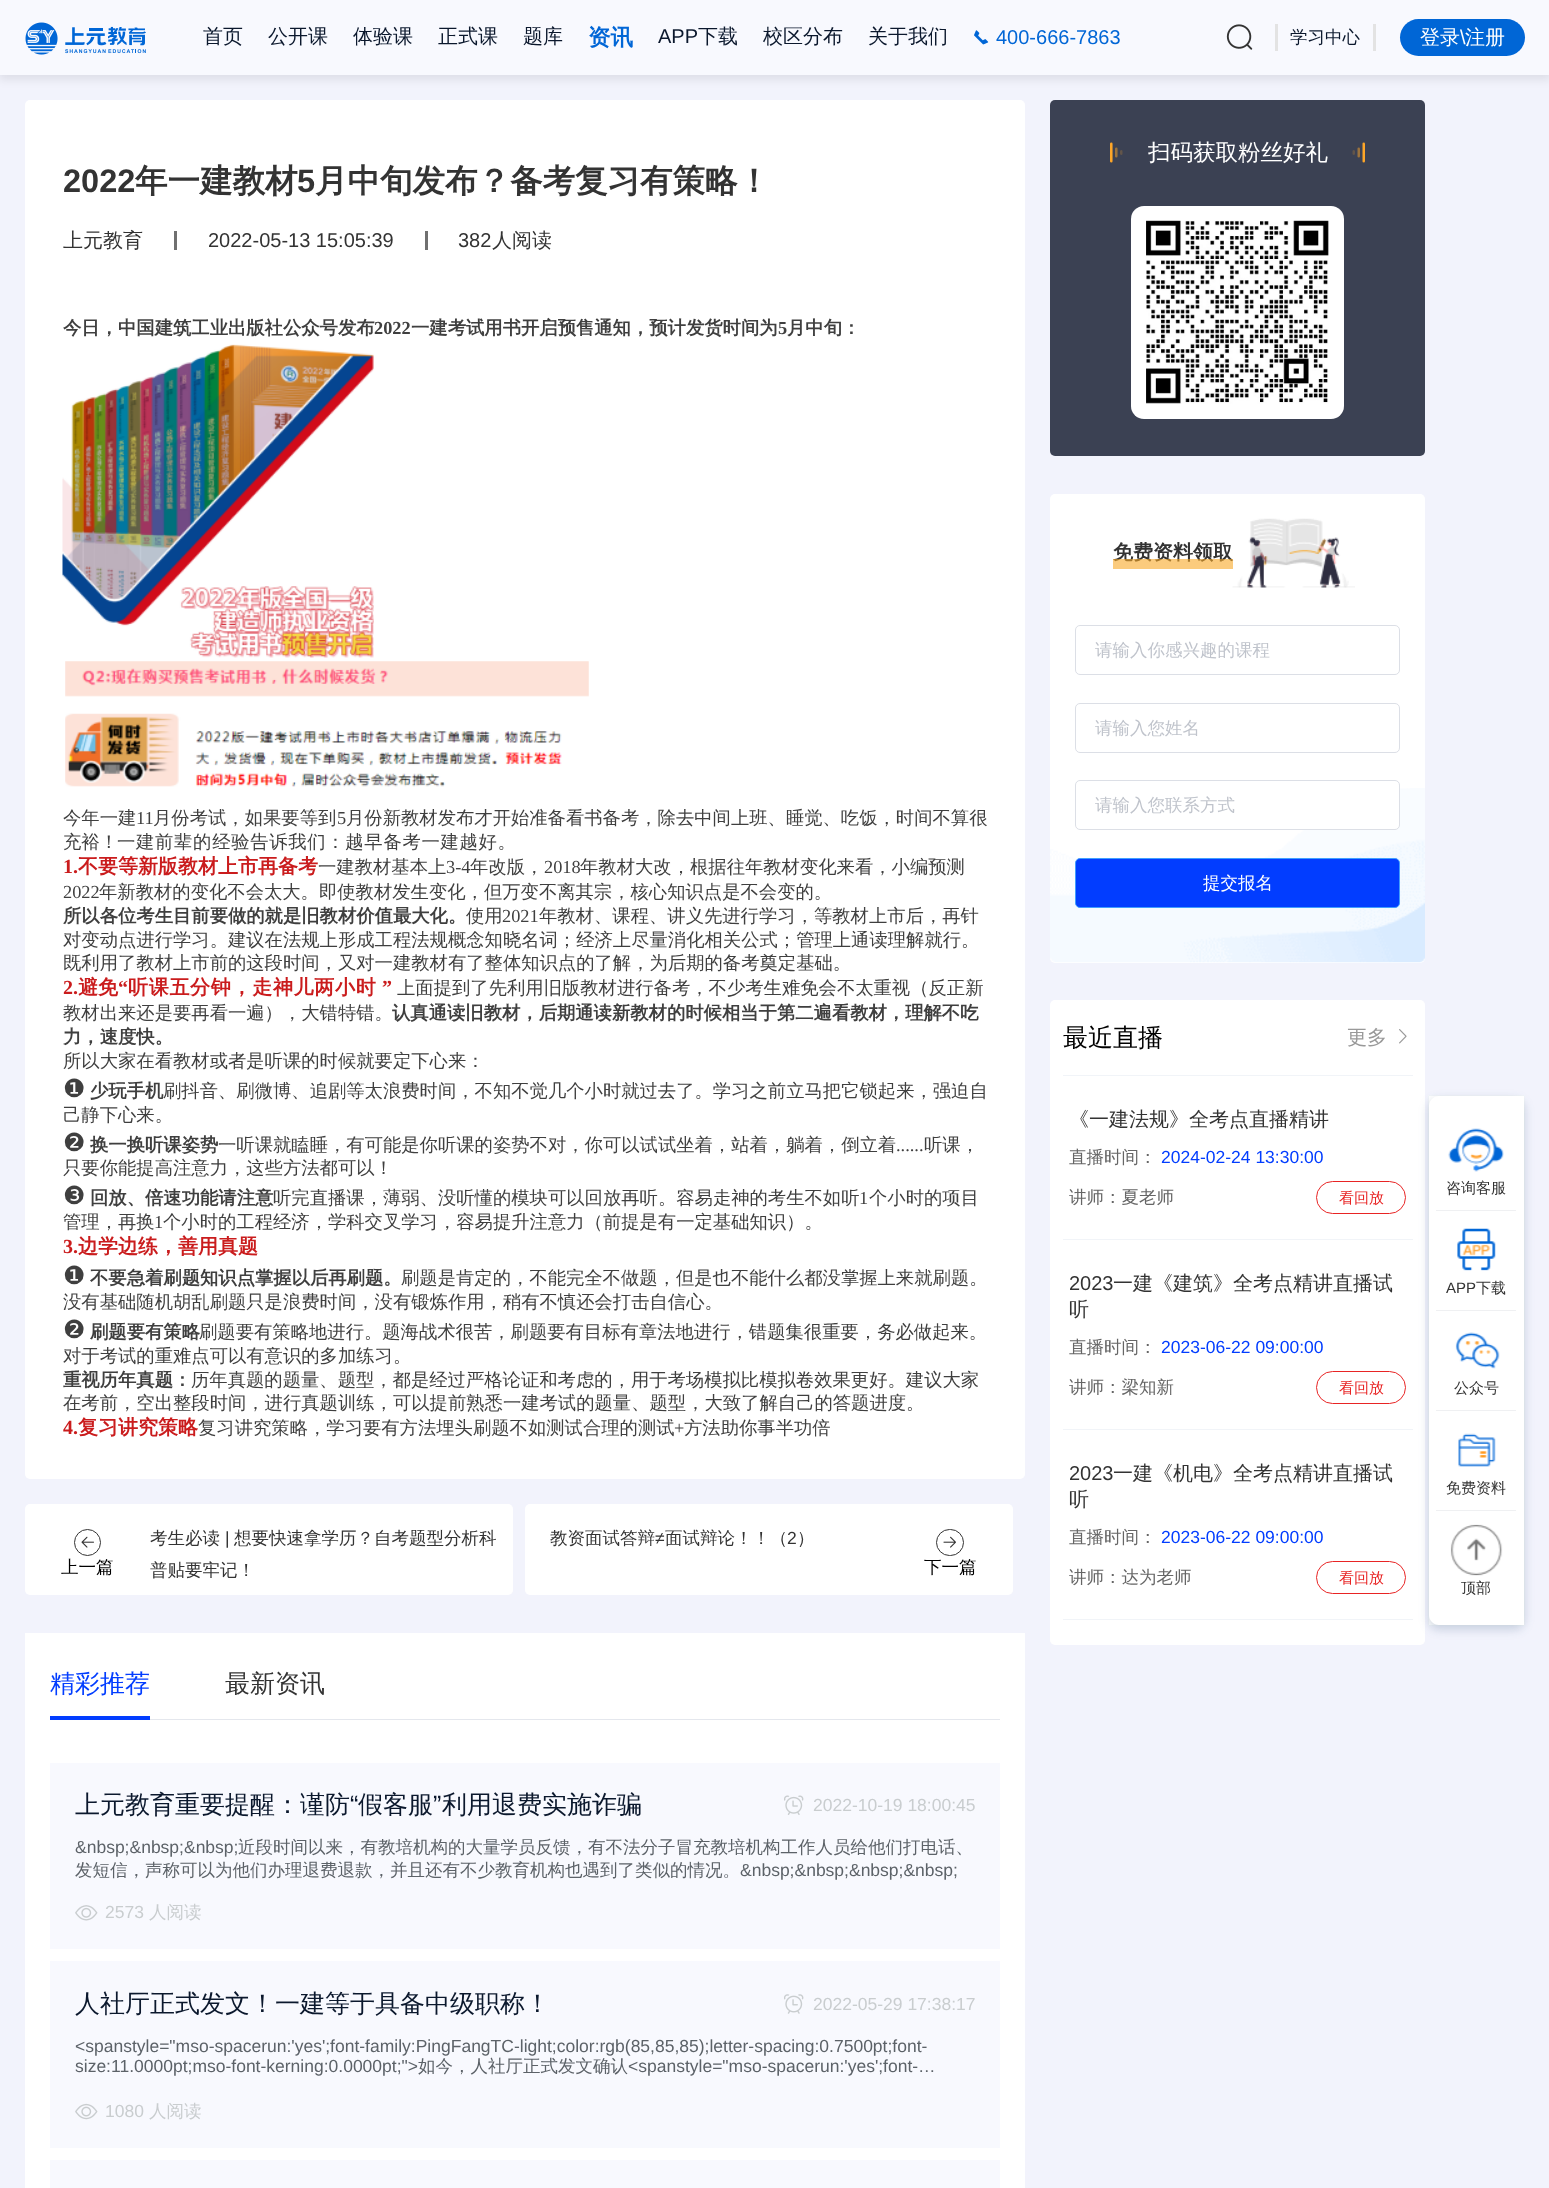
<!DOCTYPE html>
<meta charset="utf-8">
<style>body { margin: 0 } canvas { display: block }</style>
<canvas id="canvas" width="1549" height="2188"></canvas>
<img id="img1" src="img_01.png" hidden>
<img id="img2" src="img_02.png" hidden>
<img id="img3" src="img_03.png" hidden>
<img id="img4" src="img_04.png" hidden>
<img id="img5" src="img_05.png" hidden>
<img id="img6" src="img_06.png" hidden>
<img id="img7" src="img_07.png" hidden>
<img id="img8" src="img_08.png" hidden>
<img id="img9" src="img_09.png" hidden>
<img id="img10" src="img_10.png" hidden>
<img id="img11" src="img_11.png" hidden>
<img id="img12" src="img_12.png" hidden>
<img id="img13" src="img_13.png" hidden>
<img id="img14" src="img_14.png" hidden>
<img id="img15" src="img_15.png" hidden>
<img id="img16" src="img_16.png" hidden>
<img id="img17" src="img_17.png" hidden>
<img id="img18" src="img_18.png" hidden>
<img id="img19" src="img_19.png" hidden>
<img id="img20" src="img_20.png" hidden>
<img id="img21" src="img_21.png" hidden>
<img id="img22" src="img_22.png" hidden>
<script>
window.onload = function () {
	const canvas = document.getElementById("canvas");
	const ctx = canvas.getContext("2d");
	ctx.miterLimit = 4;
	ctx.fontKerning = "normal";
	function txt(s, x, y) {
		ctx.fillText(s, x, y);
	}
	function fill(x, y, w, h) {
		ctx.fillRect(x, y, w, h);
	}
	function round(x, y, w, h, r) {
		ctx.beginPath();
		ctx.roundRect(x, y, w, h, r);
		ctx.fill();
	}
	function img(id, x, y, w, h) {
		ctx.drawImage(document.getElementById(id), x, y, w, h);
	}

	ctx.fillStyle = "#F2F3FC";
	fill(0, 0, 1549, 2188);
	ctx.fillStyle = "rgba(0, 0, 0, 0.08)";
	ctx.filter = "blur(4px)";
	ctx.beginPath();
	ctx.rect(-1, 3, 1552, 77);
	ctx.fill();
	ctx.filter = "none";
	ctx.fillStyle = "#F8F9FE";
	fill(0, 0, 1549, 75);
	img("img1", 25, 22, 121, 33);
	img("img2", 974, 30, 15, 15);
	img("img3", 1226, 24, 27, 26);
	ctx.fillStyle = "#E3E3E3";
	fill(1275, 24, 3, 27);
	fill(1373, 24, 3, 27);
	ctx.fillStyle = "#0066D6";
	round(1400, 19, 125, 37, 18.5);
	ctx.fillStyle = "#FFFFFF";
	round(25, 100, 1000, 1379, 5);
	ctx.fillStyle = "#707070";
	fill(174, 231, 3, 19);
	fill(425, 231, 3, 19);
	img("img4", 62, 344, 312, 314);
	img("img5", 65, 661, 524, 126);
	ctx.fillStyle = "#FFFFFF";
	round(25, 1504, 488, 91, 5);
	ctx.beginPath();
	ctx.arc(87.5, 1542.5, 13, 0, Math.PI * 2);
	ctx.strokeStyle = "#333333";
	ctx.stroke();
	img("img6", 81, 1536, 13, 12);
	round(525, 1504, 488, 91, 5);
	ctx.beginPath();
	ctx.roundRect(936.5, 1529.5, 27, 26, 13);
	ctx.stroke();
	img("img7", 943, 1536, 13, 12);
	fill(25, 1633, 1000, 555);
	ctx.fillStyle = "#023DFF";
	fill(50, 1716, 100, 4);
	ctx.fillStyle = "#E4E7ED";
	fill(150, 1719, 850, 1);
	ctx.fillStyle = "#F8F9FE";
	fill(50, 1763, 950, 186);
	img("img8", 784, 1795, 20, 20);
	img("img9", 75, 1905, 23, 16);
	fill(50, 1961, 950, 187);
	img("img10", 784, 1994, 20, 20);
	img("img11", 75, 2103, 23, 17);
	fill(50, 2160, 950, 28);
	ctx.fillStyle = "#3B4153";
	round(1050, 100, 375, 356, 5);
	img("img12", 1110, 142, 13, 21);
	img("img13", 1352, 142, 13, 21);
	ctx.fillStyle = "#FFFFFF";
	round(1131, 206, 213, 213, 13);
	img("img14", 1146, 220, 183, 184);
	round(1050, 494, 375, 469, 5);
	img("img15", 1050, 788, 375, 175);
	img("img16", 1232, 518, 123, 70);
	ctx.beginPath();
	ctx.roundRect(1075.5, 625.5, 324, 49, 4.5);
	ctx.strokeStyle = "#DCDFE6";
	ctx.stroke();
	ctx.beginPath();
	ctx.roundRect(1075.5, 703.5, 324, 49, 4.5);
	ctx.stroke();
	ctx.beginPath();
	ctx.roundRect(1075.5, 780.5, 324, 49, 4.5);
	ctx.fill();
	ctx.stroke();
	ctx.fillStyle = "#023DFF";
	ctx.beginPath();
	ctx.roundRect(1075.5, 858.5, 324, 49, 4.5);
	ctx.fill();
	ctx.strokeStyle = "#409EFF";
	ctx.stroke();
	ctx.fillStyle = "#FFFFFF";
	round(1050, 1000, 375, 645, 5);
	ctx.fillStyle = "#F1F4F8";
	fill(1063, 1075, 350, 1);
	img("img17", 1399, 1029, 8, 15);
	fill(1063, 1239, 350, 1);
	ctx.beginPath();
	ctx.roundRect(1316.5, 1181.5, 89, 32, 16);
	ctx.strokeStyle = "#E82424";
	ctx.stroke();
	fill(1063, 1429, 350, 1);
	ctx.beginPath();
	ctx.roundRect(1316.5, 1371.5, 89, 32, 16);
	ctx.stroke();
	fill(1063, 1619, 350, 1);
	ctx.beginPath();
	ctx.roundRect(1316.5, 1561.5, 89, 32, 16);
	ctx.stroke();
	ctx.fillStyle = "#FFFFFF";
	ctx.beginPath();
	ctx.rect(1428.5, 1095.5, 96, 530);
	ctx.fill();
	ctx.strokeStyle = "#F1F4F8";
	ctx.stroke();
	ctx.save();
	ctx.beginPath();
	ctx.moveTo(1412, 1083);
	ctx.lineTo(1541, 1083);
	ctx.lineTo(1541, 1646);
	ctx.lineTo(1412, 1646);
	ctx.closePath();
	ctx.moveTo(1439, 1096);
	ctx.lineTo(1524, 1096);
	ctx.lineTo(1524, 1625);
	ctx.lineTo(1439, 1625);
	ctx.bezierCurveTo(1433.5, 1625, 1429, 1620.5, 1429, 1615);
	ctx.lineTo(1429, 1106);
	ctx.bezierCurveTo(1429, 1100.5, 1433.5, 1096, 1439, 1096);
	ctx.closePath();
	ctx.clip("evenodd");
	ctx.fillStyle = "rgba(20, 60, 107, 0.18)";
	ctx.filter = "blur(5px)";
	ctx.beginPath();
	ctx.roundRect(1428, 1099, 97, 531, 11);
	ctx.fill();
	ctx.filter = "none";
	ctx.restore();
	ctx.fillStyle = "#EFF0F2";
	fill(1436, 1210, 80, 1);
	img("img18", 1448, 1128, 56, 44);
	fill(1436, 1310, 80, 1);
	img("img19", 1457, 1228, 39, 43);
	fill(1436, 1410, 80, 1);
	img("img20", 1455, 1332, 45, 37);
	fill(1436, 1510, 80, 1);
	img("img21", 1458, 1433, 38, 34);
	img("img22", 1450, 1524, 53, 52);
	ctx.font = "500 20px WenQuanYi Zen Hei";
	ctx.fillStyle = "#0B182D";
	txt("首页", 203, 43);
	txt("公开课", 268, 43);
	txt("体验课", 353, 43);
	txt("正式课", 438, 43);
	txt("题库", 523, 43);
	ctx.font = "bold 22.5px WenQuanYi Zen Hei";
	ctx.fillStyle = "#0166D6";
	txt("资讯", 588, 45);
	ctx.font = "20px Liberation Sans";
	ctx.fillStyle = "#0B182D";
	txt("APP", 658, 43);
	ctx.font = "500 20px WenQuanYi Zen Hei";
	txt("下载", 698, 43);
	txt("校区分布", 763, 43);
	txt("关于我们", 868, 43);
	ctx.font = "20px Liberation Sans";
	ctx.fillStyle = "#0166D6";
	txt("400-666-7863", 996, 44);
	ctx.font = "500 17.5px WenQuanYi Zen Hei";
	ctx.fillStyle = "#0B182D";
	txt("学习中心", 1290, 43);
	ctx.font = "500 20px WenQuanYi Zen Hei";
	ctx.fillStyle = "#FFFFFF";
	txt("登录", 1420, 44);
	ctx.font = "20px Liberation Sans";
	txt("\\", 1460, 44);
	ctx.font = "500 20px WenQuanYi Zen Hei";
	txt("注册", 1465, 44);
	ctx.font = "bold 32.5px Liberation Sans";
	ctx.fillStyle = "#333333";
	txt("2022", 63, 192);
	ctx.font = "bold 32.5px WenQuanYi Zen Hei";
	txt("年一建教材", 135, 192);
	ctx.font = "bold 32.5px Liberation Sans";
	txt("5", 297, 192);
	ctx.font = "bold 32.5px WenQuanYi Zen Hei";
	txt("月中旬发布？备考复习有策略！", 315, 192);
	ctx.font = "500 20px WenQuanYi Zen Hei";
	txt("上元教育", 63, 247);
	ctx.font = "20px Liberation Sans";
	txt("2022-05-13 15:05:39", 208, 247);
	txt("382", 458, 247);
	ctx.font = "500 20px WenQuanYi Zen Hei";
	txt("人阅读", 492, 247);
	ctx.font = "bold 18.33px WenQuanYi Zen Hei";
	ctx.fillStyle = "#3F3F3F";
	txt("今日，中国建筑工业出版社公众号发布", 63, 334);
	ctx.font = "bold 18.33px Liberation Serif";
	txt("2022", 374, 334);
	ctx.font = "bold 18.33px WenQuanYi Zen Hei";
	txt("一建考试用书开启预售通知，预计发货时间为", 411, 334);
	ctx.font = "bold 18.33px Liberation Serif";
	txt("5", 778, 334);
	ctx.font = "bold 18.33px WenQuanYi Zen Hei";
	txt("月中旬：", 787, 334);
	ctx.font = "500 18.33px WenQuanYi Zen Hei";
	txt("今年一建", 63, 824);
	ctx.font = "18.33px Liberation Serif";
	txt("11", 136, 824);
	ctx.font = "500 18.33px WenQuanYi Zen Hei";
	txt("月份考试，如果要等到", 153, 824);
	ctx.font = "18.33px Liberation Serif";
	txt("5", 337, 824);
	ctx.font = "500 18.33px WenQuanYi Zen Hei";
	txt("月份新教材发布才开始准备看书备考，除去中间上班、睡觉、吃饭，时间不算很", 346, 824);
	txt("充裕！", 63, 848);
	ctx.letterSpacing = "0.7px";
	txt("一建前辈的经验告诉我们：越早备考一建越好。", 117, 848);
	ctx.letterSpacing = "0px";
	ctx.font = "bold 20px Liberation Serif";
	ctx.fillStyle = "#CA1C1D";
	txt("1.", 63, 873);
	ctx.font = "bold 20px WenQuanYi Zen Hei";
	txt("不要等新版教材上市再备考", 78, 873);
	ctx.font = "500 18.33px WenQuanYi Zen Hei";
	ctx.fillStyle = "#3F3F3F";
	txt("一建教材基本上", 318, 873);
	ctx.font = "18.33px Liberation Serif";
	txt("3-4", 446, 873);
	ctx.font = "500 18.33px WenQuanYi Zen Hei";
	txt("年改版，", 470, 873);
	ctx.font = "18.33px Liberation Serif";
	txt("2018", 544, 873);
	ctx.font = "500 18.33px WenQuanYi Zen Hei";
	txt("年教材大改，根据往年教材变化来看，小编预测", 580, 873);
	ctx.font = "18.33px Liberation Serif";
	txt("2022", 63, 898);
	ctx.font = "500 18.33px WenQuanYi Zen Hei";
	txt("年新教材的变化不会太大。即使教材发生变化，但万变不离其宗，核心知识点是不会变的。", 99, 898);
	ctx.font = "bold 18.33px WenQuanYi Zen Hei";
	txt("所以各位考生目前要做的就是旧教材价值最大化。", 63, 922);
	ctx.font = "500 18.33px WenQuanYi Zen Hei";
	txt("使用", 466, 922);
	ctx.font = "18.33px Liberation Serif";
	txt("2021", 502, 922);
	ctx.font = "500 18.33px WenQuanYi Zen Hei";
	txt("年教材、课程、讲义先进行学习，等教材上市后，再针", 539, 922);
	txt("对变动点进行学习。建议在法规上形成工程法规概念知晓名词；经济上尽量消化相关公式；管理上通读理解就行。", 63, 946);
	txt("既利用了教材上市前的这段时间，又对一建教材有了整体知识点的了解，为后期的备考奠定基础。", 63, 969);
	ctx.font = "bold 20px Liberation Serif";
	ctx.fillStyle = "#CA1C1D";
	txt("2.", 63, 994);
	ctx.font = "bold 20px WenQuanYi Zen Hei";
	txt("避免", 78, 994);
	ctx.font = "bold 20px Liberation Serif";
	txt("“", 118, 994);
	ctx.letterSpacing = "0.7px";
	ctx.font = "bold 20px WenQuanYi Zen Hei";
	txt("听课五分钟，走神儿两小时", 128, 994);
	ctx.letterSpacing = "0px";
	ctx.font = "bold 20px Liberation Serif";
	txt("”", 382, 994);
	ctx.font = "500 18.33px WenQuanYi Zen Hei";
	ctx.fillStyle = "#3F3F3F";
	txt("上面提到了先利用旧版教材进行备考，不少考生难免会不太重视（反正新", 397, 994);
	txt("教材出来还是要再看一遍），大错特错。", 63, 1019);
	ctx.font = "bold 18.33px WenQuanYi Zen Hei";
	txt("认真通读旧教材，后期通读新教材的时候相当于第二遍看教材，理解不吃", 392, 1019);
	txt("力，速度快。", 63, 1043);
	ctx.font = "500 18.33px WenQuanYi Zen Hei";
	txt("所以大家在看教材或者是听课的时候就要定下心来：", 63, 1067);
	ctx.font = "25px DejaVu Sans";
	txt("❶", 63, 1097);
	ctx.font = "bold 18.33px WenQuanYi Zen Hei";
	txt("少玩手机", 90, 1097);
	ctx.font = "500 18.33px WenQuanYi Zen Hei";
	txt("刷抖音、刷微博、追剧等太浪费时间，不知不觉几个小时就过去了。学习之前立马把它锁起来，强迫自", 163, 1097);
	txt("己静下心来。", 63, 1121);
	ctx.font = "25px DejaVu Sans";
	txt("❷", 63, 1151);
	ctx.font = "bold 18.33px WenQuanYi Zen Hei";
	txt("换一换听课姿势", 90, 1151);
	ctx.font = "500 18.33px WenQuanYi Zen Hei";
	txt("一听课就瞌睡，有可能是你听课的姿势不对，你可以试试坐着，站着，躺着，倒立着", 218, 1151);
	ctx.font = "18.33px Liberation Serif";
	txt("......", 896, 1151);
	ctx.font = "500 18.33px WenQuanYi Zen Hei";
	txt("听课，", 924, 1151);
	txt("只要你能提高注意力，这些方法都可以！", 63, 1174);
	ctx.font = "25px DejaVu Sans";
	txt("❸", 63, 1204);
	ctx.font = "bold 18.33px WenQuanYi Zen Hei";
	txt("回放、倍速功能请注意", 90, 1204);
	ctx.font = "500 18.33px WenQuanYi Zen Hei";
	txt("听完直播课，薄弱、没听懂的模块可以回放再听。容易走神的考生不如听", 273, 1204);
	ctx.font = "18.33px Liberation Serif";
	txt("1", 859, 1204);
	ctx.font = "500 18.33px WenQuanYi Zen Hei";
	txt("个小时的项目", 869, 1204);
	txt("管理，再换", 63, 1228);
	ctx.font = "18.33px Liberation Serif";
	txt("1", 154, 1228);
	ctx.font = "500 18.33px WenQuanYi Zen Hei";
	txt("个小时的工程经济，学科交叉学习，容易提升注意力（前提是有一定基础知识）。", 163, 1228);
	ctx.font = "bold 20px Liberation Serif";
	ctx.fillStyle = "#CA1C1D";
	txt("3.", 63, 1253);
	ctx.font = "bold 20px WenQuanYi Zen Hei";
	txt("边学边练，善用真题", 78, 1253);
	ctx.font = "25px DejaVu Sans";
	ctx.fillStyle = "#3F3F3F";
	txt("❶", 63, 1284);
	ctx.font = "bold 18.33px WenQuanYi Zen Hei";
	txt("不要急着刷题知识点掌握以后再刷题。", 90, 1284);
	ctx.font = "500 18.33px WenQuanYi Zen Hei";
	txt("刷题是肯定的，不能完全不做题，但是也不能什么都没掌握上来就刷题。", 401, 1284);
	txt("没有基础随机胡乱刷题只是浪费时间，没有锻炼作用，稍有不慎还会打击自信心。", 63, 1308);
	ctx.font = "25px DejaVu Sans";
	txt("❷", 63, 1338);
	ctx.font = "bold 18.33px WenQuanYi Zen Hei";
	txt("刷题要有策略", 90, 1338);
	ctx.font = "500 18.33px WenQuanYi Zen Hei";
	txt("刷题要有策略地进行。题海战术很苦，刷题要有目标有章法地进行，错题集很重要，务必做起来。", 199, 1338);
	txt("对于考试的重难点可以有意识的多加练习。", 63, 1362);
	ctx.font = "bold 18.33px WenQuanYi Zen Hei";
	txt("重视历年真题：", 63, 1386);
	ctx.font = "500 18.33px WenQuanYi Zen Hei";
	txt("历年真题的题量、题型，都是经过严格论证和考虑的，用于考场模拟比模拟卷效果更好。建议大家", 191, 1386);
	txt("在考前，空出整段时间，进行真题训练，可以提前熟悉一建考试的题量、题型，大致了解自己的答题进度。", 63, 1409);
	ctx.font = "bold 20px Liberation Serif";
	ctx.fillStyle = "#CA1C1D";
	txt("4.", 63, 1434);
	ctx.font = "bold 20px WenQuanYi Zen Hei";
	txt("复习讲究策略", 78, 1434);
	ctx.font = "500 18.33px WenQuanYi Zen Hei";
	ctx.fillStyle = "#3F3F3F";
	txt("复习讲究策略，学习要有方法埋头刷题不如测试合理的测试", 198, 1434);
	ctx.font = "18.33px Liberation Serif";
	txt("+", 674, 1434);
	ctx.font = "500 18.33px WenQuanYi Zen Hei";
	txt("方法助你事半功倍", 684, 1434);
	ctx.font = "500 17.5px WenQuanYi Zen Hei";
	ctx.fillStyle = "#000000";
	txt("上一篇", 61, 1573);
	ctx.fillStyle = "#333333";
	txt("考生必读", 150, 1544);
	ctx.font = "17.5px Liberation Sans";
	txt("|", 225, 1544);
	ctx.font = "500 17.5px WenQuanYi Zen Hei";
	txt("想要快速拿学历？自考题型分析科", 234, 1544);
	txt("普贴要牢记！", 150, 1576);
	txt("教资面试答辩", 550, 1544);
	ctx.font = "17.5px Liberation Sans";
	txt("≠", 655, 1544);
	ctx.font = "500 17.5px WenQuanYi Zen Hei";
	txt("面试辩论！！（", 665, 1544);
	ctx.font = "17.5px Liberation Sans";
	txt("2", 787, 1544);
	ctx.font = "500 17.5px WenQuanYi Zen Hei";
	txt("）", 797, 1544);
	ctx.fillStyle = "#000000";
	txt("下一篇", 924, 1573);
	ctx.font = "500 25px WenQuanYi Zen Hei";
	ctx.fillStyle = "#023DFF";
	txt("精彩推荐", 50, 1692);
	ctx.fillStyle = "#333333";
	txt("最新资讯", 225, 1692);
	ctx.fillStyle = "#0B182D";
	txt("上元教育重要提醒：谨防", 75, 1813);
	ctx.font = "25px Liberation Sans";
	txt("“", 350, 1813);
	ctx.font = "500 25px WenQuanYi Zen Hei";
	txt("假客服", 358, 1813);
	ctx.font = "25px Liberation Sans";
	txt("”", 433, 1813);
	ctx.font = "500 25px WenQuanYi Zen Hei";
	txt("利用退费实施诈骗", 442, 1813);
	ctx.font = "17.5px Liberation Sans";
	ctx.fillStyle = "#C9CDCF";
	txt("2022-10-19 18:00:45", 813, 1811);
	ctx.fillStyle = "#5C6268";
	txt("&nbsp;&nbsp;&nbsp;", 75, 1853);
	ctx.font = "500 17.5px WenQuanYi Zen Hei";
	txt("近段时间以来，有教培机构的大量学员反馈，有不法分子冒充教培机构工作人员给他们打电话、", 238, 1853);
	txt("发短信，声称可以为他们办理退费退款，并且还有不少教育机构也遇到了类似的情况。", 75, 1876);
	ctx.font = "17.5px Liberation Sans";
	txt("&nbsp;&nbsp;&nbsp;&nbsp;", 740, 1876);
	ctx.fillStyle = "#C9CDCF";
	txt("2573", 105, 1918);
	ctx.font = "500 17.5px WenQuanYi Zen Hei";
	txt("人阅读", 149, 1918);
	ctx.font = "500 25px WenQuanYi Zen Hei";
	ctx.fillStyle = "#0B182D";
	txt("人社厅正式发文！一建等于具备中级职称！", 75, 2012);
	ctx.font = "17.5px Liberation Sans";
	ctx.fillStyle = "#C9CDCF";
	txt("2022-05-29 17:38:17", 813, 2010);
	ctx.fillStyle = "#5C6268";
	txt("<spanstyle=\"mso-spacerun:'yes';font-family:PingFangTC-light;color:rgb(85,85,85);letter-spacing:0.7500pt;font-", 75, 2052);
	txt("size:11.0000pt;mso-font-kerning:0.0000pt;\">", 75, 2072);
	ctx.font = "500 17.5px WenQuanYi Zen Hei";
	txt("如今，人社厅正式发文确认", 418, 2072);
	ctx.font = "17.5px Liberation Sans";
	txt("<spanstyle=\"mso-spacerun:'yes';font-…", 628, 2072);
	ctx.fillStyle = "#C9CDCF";
	txt("1080", 105, 2117);
	ctx.font = "500 17.5px WenQuanYi Zen Hei";
	txt("人阅读", 149, 2117);
	ctx.font = "500 22.5px WenQuanYi Zen Hei";
	ctx.fillStyle = "#FFFFFF";
	txt("扫码获取粉丝好礼", 1148, 160);
	ctx.font = "bold 20px WenQuanYi Zen Hei";
	ctx.fillStyle = "#333333";
	txt("免费资料领取", 1113, 559);
	ctx.fillStyle = "rgba(249, 168, 38, 0.6)";
	fill(1113, 559, 120, 10);
	ctx.font = "500 17.5px WenQuanYi Zen Hei";
	ctx.fillStyle = "#C0C4CC";
	txt("请输入你感兴趣的课程", 1095, 656);
	txt("请输入您姓名", 1095, 734);
	txt("请输入您联系方式", 1095, 811);
	ctx.fillStyle = "#FFFFFF";
	txt("提交报名", 1203, 889);
	ctx.font = "500 25px WenQuanYi Zen Hei";
	ctx.fillStyle = "#000000";
	txt("最近直播", 1063, 1046);
	ctx.font = "500 20px WenQuanYi Zen Hei";
	ctx.fillStyle = "#999999";
	txt("更多", 1347, 1044);
	ctx.fillStyle = "#333333";
	txt("《一建法规》全考点直播精讲", 1069, 1126);
	ctx.font = "500 17.5px WenQuanYi Zen Hei";
	ctx.fillStyle = "#666666";
	txt("直播时间：", 1069, 1163);
	ctx.font = "17.5px Liberation Sans";
	ctx.fillStyle = "#023DFF";
	txt("2024-02-24 13:30:00", 1161, 1163);
	ctx.font = "500 17.5px WenQuanYi Zen Hei";
	ctx.fillStyle = "#666666";
	txt("讲师：夏老师", 1069, 1203);
	ctx.font = "500 15px WenQuanYi Zen Hei";
	ctx.fillStyle = "#E82424";
	txt("看回放", 1339, 1203);
	ctx.font = "20px Liberation Sans";
	ctx.fillStyle = "#333333";
	txt("2023", 1069, 1290);
	ctx.font = "500 20px WenQuanYi Zen Hei";
	txt("一建《建筑》全考点精讲直播试", 1113, 1290);
	txt("听", 1069, 1316);
	ctx.font = "500 17.5px WenQuanYi Zen Hei";
	ctx.fillStyle = "#666666";
	txt("直播时间：", 1069, 1353);
	ctx.font = "17.5px Liberation Sans";
	ctx.fillStyle = "#023DFF";
	txt("2023-06-22 09:00:00", 1161, 1353);
	ctx.font = "500 17.5px WenQuanYi Zen Hei";
	ctx.fillStyle = "#666666";
	txt("讲师：梁知新", 1069, 1393);
	ctx.font = "500 15px WenQuanYi Zen Hei";
	ctx.fillStyle = "#E82424";
	txt("看回放", 1339, 1393);
	ctx.font = "20px Liberation Sans";
	ctx.fillStyle = "#333333";
	txt("2023", 1069, 1480);
	ctx.font = "500 20px WenQuanYi Zen Hei";
	txt("一建《机电》全考点精讲直播试", 1113, 1480);
	txt("听", 1069, 1506);
	ctx.font = "500 17.5px WenQuanYi Zen Hei";
	ctx.fillStyle = "#666666";
	txt("直播时间：", 1069, 1543);
	ctx.font = "17.5px Liberation Sans";
	ctx.fillStyle = "#023DFF";
	txt("2023-06-22 09:00:00", 1161, 1543);
	ctx.font = "500 17.5px WenQuanYi Zen Hei";
	ctx.fillStyle = "#666666";
	txt("讲师：达为老师", 1069, 1583);
	ctx.font = "500 15px WenQuanYi Zen Hei";
	ctx.fillStyle = "#E82424";
	txt("看回放", 1339, 1583);
	ctx.fillStyle = "#333333";
	txt("咨询客服", 1446, 1193);
	ctx.font = "15px Liberation Sans";
	txt("APP", 1446, 1293);
	ctx.font = "500 15px WenQuanYi Zen Hei";
	txt("下载", 1476, 1293);
	txt("公众号", 1454, 1393);
	txt("免费资料", 1446, 1493);
	txt("顶部", 1461, 1593);
};
</script>
